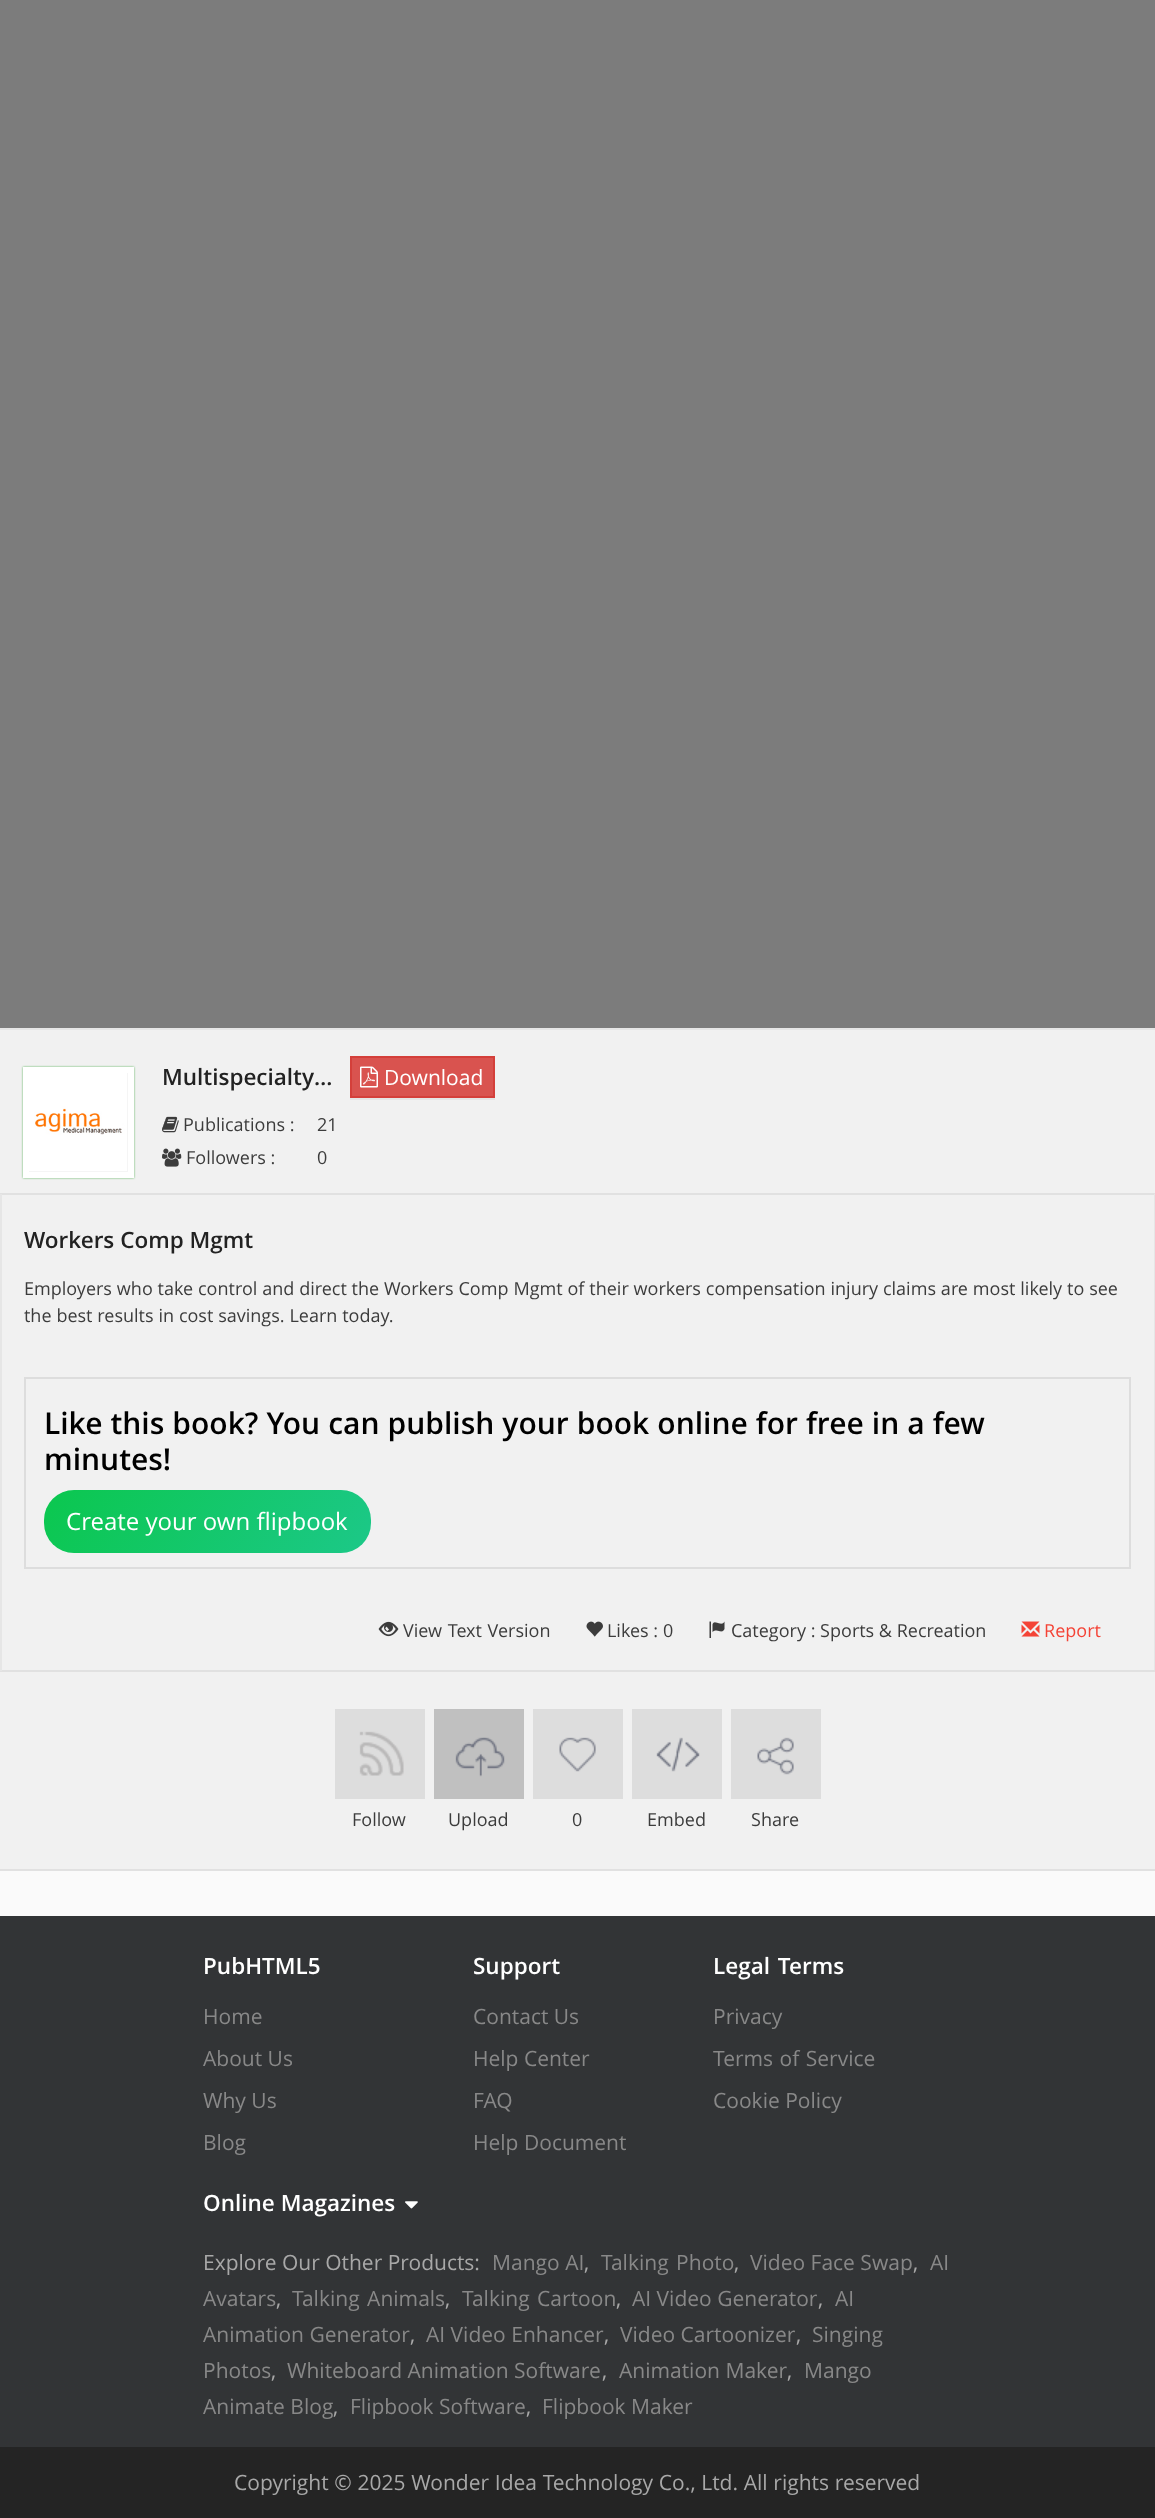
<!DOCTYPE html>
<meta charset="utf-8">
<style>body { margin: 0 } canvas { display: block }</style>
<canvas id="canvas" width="1155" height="2518"></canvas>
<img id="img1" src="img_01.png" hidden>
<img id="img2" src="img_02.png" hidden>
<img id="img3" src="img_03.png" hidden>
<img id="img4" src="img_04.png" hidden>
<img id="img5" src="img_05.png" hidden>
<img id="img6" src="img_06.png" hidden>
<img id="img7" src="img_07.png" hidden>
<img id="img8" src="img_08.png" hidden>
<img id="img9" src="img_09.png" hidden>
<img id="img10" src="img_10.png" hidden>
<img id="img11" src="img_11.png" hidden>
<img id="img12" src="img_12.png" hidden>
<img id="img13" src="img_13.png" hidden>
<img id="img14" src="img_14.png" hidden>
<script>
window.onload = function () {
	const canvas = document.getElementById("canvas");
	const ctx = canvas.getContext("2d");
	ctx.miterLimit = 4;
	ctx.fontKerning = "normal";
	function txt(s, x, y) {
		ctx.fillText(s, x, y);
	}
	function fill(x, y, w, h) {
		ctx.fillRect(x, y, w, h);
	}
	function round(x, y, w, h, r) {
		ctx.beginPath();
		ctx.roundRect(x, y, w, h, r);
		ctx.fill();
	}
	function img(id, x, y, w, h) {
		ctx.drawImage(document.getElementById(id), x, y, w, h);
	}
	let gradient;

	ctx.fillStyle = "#7C7C7C";
	fill(0, 0, 1155, 2518);
	ctx.fillStyle = "#FAFAFA";
	fill(0, 1871, 1155, 45);
	ctx.fillStyle = "#F1F1F1";
	fill(0, 1030, 1155, 839);
	ctx.fillStyle = "#E6E6E6";
	fill(0, 1028, 1155, 2);
	ctx.fillStyle = "#E1E1E1";
	fill(0, 1193, 1155, 2);
	ctx.fillStyle = "#5CB85C";
	ctx.filter = "blur(1px)";
	ctx.beginPath();
	ctx.rect(23, 1067, 111, 111);
	ctx.fill();
	ctx.filter = "none";
	ctx.fillStyle = "#F5F5F5";
	ctx.beginPath();
	ctx.rect(26, 1070, 105, 105);
	ctx.fill();
	ctx.strokeStyle = "#FFFFFF";
	ctx.lineWidth = 6;
	ctx.stroke();
	img("img1", 29, 1073, 98, 98);
	ctx.fillStyle = "#E5E5E5";
	fill(350, 1098, 145, 2);
	ctx.fillStyle = "#D9534F";
	ctx.beginPath();
	ctx.rect(351, 1057, 143, 40);
	ctx.fill();
	ctx.strokeStyle = "#D43F3A";
	ctx.lineWidth = 2;
	ctx.stroke();
	img("img2", 360, 1066, 18, 22);
	img("img3", 162, 1116, 17, 17);
	img("img4", 162, 1148, 20, 19);
	ctx.fillStyle = "#E6E6E6";
	fill(1154, 1194, 1, 477);
	ctx.fillStyle = "#E1E1E1";
	fill(0, 1670, 1155, 2);
	ctx.fillStyle = "#E6E6E6";
	fill(0, 1194, 2, 477);
	ctx.strokeStyle = "#DDDDDD";
	ctx.strokeRect(25, 1378, 1105, 190);
	gradient = ctx.createLinearGradient(82, 1434, 332, 1608);
	gradient.addColorStop(0, "#0BC74E");
	gradient.addColorStop(1, "#1CC888");
	ctx.fillStyle = gradient;
	round(44, 1490, 327, 63, 30);
	img("img5", 378, 1621, 21, 16);
	img("img6", 586, 1621, 17, 16);
	img("img7", 709, 1621, 16, 17);
	img("img8", 1021, 1621, 19, 16);
	ctx.fillStyle = "#E1E1E1";
	fill(0, 1869, 1155, 2);
	ctx.fillStyle = "#DDDDDD";
	fill(335, 1709, 90, 90);
	img("img9", 359, 1731, 45, 45);
	ctx.fillStyle = "#C0C0C0";
	fill(434, 1709, 90, 90);
	img("img10", 455, 1737, 50, 40);
	ctx.fillStyle = "#DDDDDD";
	fill(533, 1709, 90, 90);
	img("img11", 559, 1737, 37, 35);
	fill(632, 1709, 90, 90);
	img("img12", 656, 1737, 44, 35);
	fill(731, 1709, 90, 90);
	img("img13", 757, 1737, 37, 38);
	ctx.fillStyle = "#323436";
	fill(0, 1916, 1155, 531);
	img("img14", 405, 2201, 13, 8);
	ctx.fillStyle = "#242424";
	fill(0, 2447, 1155, 71);
	ctx.font = "600 22.5px Open Sans";
	ctx.fillStyle = "#222222";
	txt("Multispecialty…", 162, 1085);
	ctx.font = "21px Open Sans";
	ctx.fillStyle = "#FFFFFF";
	txt("Download", 384, 1085);
	ctx.font = "18px Open Sans";
	ctx.fillStyle = "#3C3C3C";
	txt("Publications :", 183, 1131);
	txt("21", 317, 1131);
	txt("Followers :", 186, 1164);
	txt("0", 317, 1164);
	ctx.font = "600 22.5px Open Sans";
	ctx.fillStyle = "#222222";
	txt("Workers Comp Mgmt", 24, 1248);
	ctx.wordSpacing = "0.2px";
	ctx.font = "18px Open Sans";
	ctx.fillStyle = "#3C3C3C";
	txt("Employers who take control and direct the Workers Comp Mgmt of their workers compensation injury claims are most likely to see", 24, 1295);
	txt("the best results in cost savings. Learn today.", 24, 1322);
	ctx.wordSpacing = "0.25px";
	ctx.font = "600 30px Open Sans";
	ctx.fillStyle = "#000000";
	txt("Like this book? You can publish your book online for free in a few", 44, 1434);
	ctx.wordSpacing = "0px";
	txt("minutes!", 44, 1470);
	ctx.font = "24px Open Sans";
	ctx.fillStyle = "#FFFFFF";
	txt("Create your own flipbook", 66, 1530);
	ctx.wordSpacing = "1px";
	ctx.font = "18px Open Sans";
	ctx.fillStyle = "#3C3C3C";
	txt("View Text Version", 403, 1637);
	ctx.wordSpacing = "0px";
	txt("Likes :", 607, 1637);
	txt("0", 663, 1637);
	txt("Category : Sports & Recreation", 731, 1637);
	ctx.fillStyle = "#F44336";
	txt("Report", 1044, 1637);
	ctx.fillStyle = "#3C3C3C";
	txt("Follow", 352, 1826);
	txt("Upload", 448, 1826);
	txt("0", 572, 1826);
	txt("Embed", 647, 1826);
	txt("Share", 751, 1826);
	ctx.font = "600 22.5px Open Sans";
	ctx.fillStyle = "#FFFFFF";
	txt("PubHTML5", 203, 1974);
	ctx.font = "21px Open Sans";
	ctx.fillStyle = "#888888";
	txt("Home", 203, 2024);
	txt("About Us", 203, 2066);
	txt("Why Us", 203, 2108);
	txt("Blog", 203, 2150);
	ctx.font = "600 22.5px Open Sans";
	ctx.fillStyle = "#FFFFFF";
	txt("Support", 473, 1974);
	ctx.font = "21px Open Sans";
	ctx.fillStyle = "#888888";
	txt("Contact Us", 473, 2024);
	txt("Help Center", 473, 2066);
	txt("FAQ", 473, 2108);
	txt("Help Document", 473, 2150);
	ctx.wordSpacing = "2px";
	ctx.font = "600 22.5px Open Sans";
	ctx.fillStyle = "#FFFFFF";
	txt("Legal Terms", 713, 1974);
	ctx.wordSpacing = "0px";
	ctx.font = "21px Open Sans";
	ctx.fillStyle = "#888888";
	txt("Privacy", 713, 2024);
	ctx.wordSpacing = "1px";
	txt("Terms of Service", 713, 2066);
	ctx.wordSpacing = "0px";
	txt("Cookie Policy", 713, 2108);
	ctx.font = "600 22.5px Open Sans";
	ctx.fillStyle = "#FFFFFF";
	txt("Online Magazines", 203, 2211);
	ctx.font = "21px Open Sans";
	ctx.fillStyle = "#A8A8A8";
	txt("Explore Our Other Products:", 203, 2270);
	ctx.fillStyle = "#888888";
	txt("Mango AI", 492, 2270);
	ctx.fillStyle = "#A8A8A8";
	txt(",", 584, 2270);
	ctx.wordSpacing = "2px";
	ctx.fillStyle = "#888888";
	txt("Talking Photo", 601, 2270);
	ctx.wordSpacing = "0px";
	ctx.fillStyle = "#A8A8A8";
	txt(",", 734, 2270);
	ctx.fillStyle = "#888888";
	txt("Video Face Swap", 750, 2270);
	ctx.fillStyle = "#A8A8A8";
	txt(",", 913, 2270);
	ctx.fillStyle = "#888888";
	txt("AI", 930, 2270);
	txt("Avatars", 203, 2306);
	ctx.fillStyle = "#A8A8A8";
	txt(",", 276, 2306);
	ctx.wordSpacing = "2px";
	ctx.fillStyle = "#888888";
	txt("Talking Animals", 292, 2306);
	ctx.wordSpacing = "0px";
	ctx.fillStyle = "#A8A8A8";
	txt(",", 445, 2306);
	ctx.wordSpacing = "2px";
	ctx.fillStyle = "#888888";
	txt("Talking Cartoon", 462, 2306);
	ctx.wordSpacing = "0px";
	ctx.fillStyle = "#A8A8A8";
	txt(",", 616, 2306);
	ctx.fillStyle = "#888888";
	txt("AI Video Generator", 632, 2306);
	ctx.fillStyle = "#A8A8A8";
	txt(",", 818, 2306);
	ctx.fillStyle = "#888888";
	txt("AI", 835, 2306);
	txt("Animation Generator", 203, 2342);
	ctx.fillStyle = "#A8A8A8";
	txt(",", 410, 2342);
	ctx.fillStyle = "#888888";
	txt("AI Video Enhancer", 426, 2342);
	ctx.fillStyle = "#A8A8A8";
	txt(",", 604, 2342);
	ctx.fillStyle = "#888888";
	txt("Video Cartoonizer", 620, 2342);
	ctx.fillStyle = "#A8A8A8";
	txt(",", 796, 2342);
	ctx.fillStyle = "#888888";
	txt("Singing", 812, 2342);
	txt("Photos", 203, 2378);
	ctx.fillStyle = "#A8A8A8";
	txt(",", 271, 2378);
	ctx.fillStyle = "#888888";
	txt("Whiteboard Animation Software", 287, 2378);
	ctx.fillStyle = "#A8A8A8";
	txt(",", 602, 2378);
	ctx.fillStyle = "#888888";
	txt("Animation Maker", 619, 2378);
	ctx.fillStyle = "#A8A8A8";
	txt(",", 787, 2378);
	ctx.fillStyle = "#888888";
	txt("Mango", 804, 2378);
	txt("Animate Blog", 203, 2414);
	ctx.fillStyle = "#A8A8A8";
	txt(",", 333, 2414);
	ctx.fillStyle = "#888888";
	txt("Flipbook Software", 350, 2414);
	ctx.fillStyle = "#A8A8A8";
	txt(",", 526, 2414);
	ctx.fillStyle = "#888888";
	txt("Flipbook Maker", 542, 2414);
	ctx.wordSpacing = "0.25px";
	ctx.fillStyle = "#A8A8A8";
	txt("Copyright © 2025 Wonder Idea Technology Co., Ltd. All rights reserved", 234, 2490);
};
</script>
